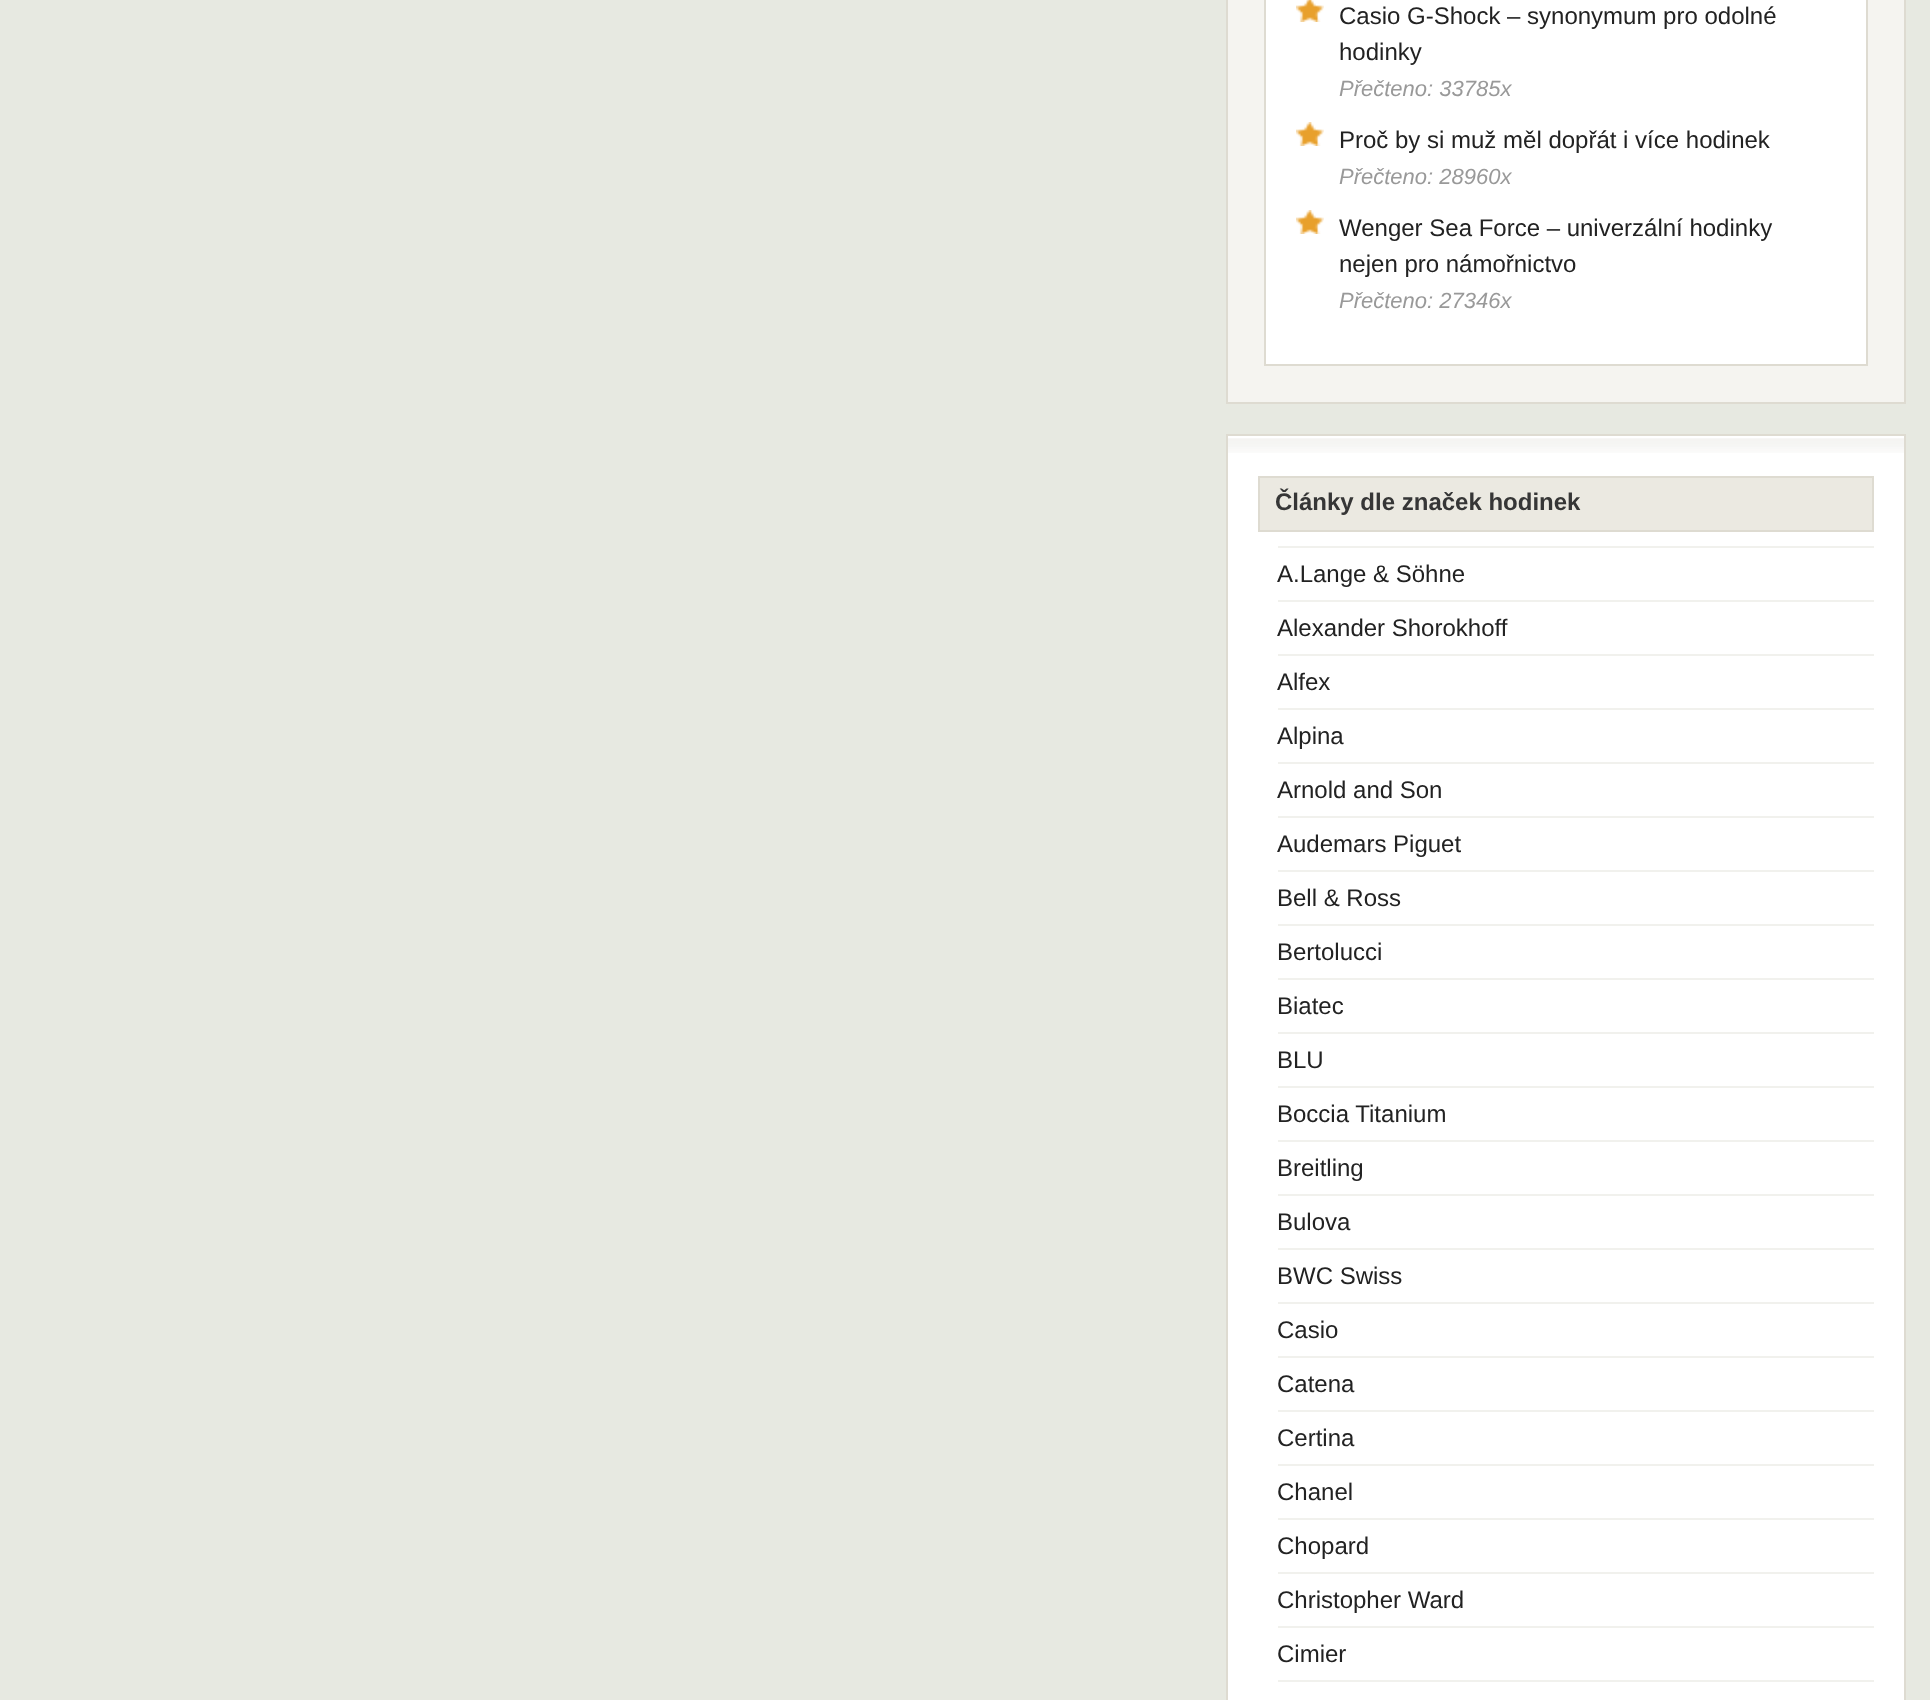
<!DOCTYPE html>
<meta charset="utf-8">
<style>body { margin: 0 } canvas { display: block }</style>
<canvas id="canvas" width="1930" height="1700"></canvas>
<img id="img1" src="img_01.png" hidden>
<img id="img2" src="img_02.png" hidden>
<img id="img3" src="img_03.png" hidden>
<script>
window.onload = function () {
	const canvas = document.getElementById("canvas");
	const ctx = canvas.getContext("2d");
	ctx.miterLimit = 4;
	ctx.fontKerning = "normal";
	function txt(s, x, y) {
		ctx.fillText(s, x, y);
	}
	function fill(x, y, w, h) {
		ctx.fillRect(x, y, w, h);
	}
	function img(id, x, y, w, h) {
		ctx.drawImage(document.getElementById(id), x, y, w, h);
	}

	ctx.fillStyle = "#E7E9E1";
	fill(0, 0, 1930, 1700);
	ctx.fillStyle = "#F5F4F0";
	ctx.beginPath();
	ctx.rect(1227, -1, 678, 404);
	ctx.fill();
	ctx.strokeStyle = "#DEDBD1";
	ctx.lineWidth = 2;
	ctx.stroke();
	ctx.fillStyle = "#FFFFFF";
	ctx.beginPath();
	ctx.rect(1265, -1, 602, 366);
	ctx.fill();
	ctx.stroke();
	img("img1", 1296, 0, 28, 22);
	img("img2", 1296, 122, 28, 24);
	img("img2", 1296, 210, 28, 24);
	fill(1228, 436, 676, 1264);
	img("img3", 1228, 438, 676, 15);
	ctx.strokeRect(1227, 435, 678, 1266);
	ctx.fillStyle = "#EBE9E1";
	ctx.beginPath();
	ctx.rect(1259, 477, 614, 54);
	ctx.fill();
	ctx.stroke();
	ctx.fillStyle = "#F1F1ED";
	fill(1278, 546, 596, 2);
	fill(1278, 600, 596, 2);
	fill(1278, 654, 596, 2);
	fill(1278, 708, 596, 2);
	fill(1278, 762, 596, 2);
	fill(1278, 816, 596, 2);
	fill(1278, 870, 596, 2);
	fill(1278, 924, 596, 2);
	fill(1278, 978, 596, 2);
	fill(1278, 1032, 596, 2);
	fill(1278, 1086, 596, 2);
	fill(1278, 1140, 596, 2);
	fill(1278, 1194, 596, 2);
	fill(1278, 1248, 596, 2);
	fill(1278, 1302, 596, 2);
	fill(1278, 1356, 596, 2);
	fill(1278, 1410, 596, 2);
	fill(1278, 1464, 596, 2);
	fill(1278, 1518, 596, 2);
	fill(1278, 1572, 596, 2);
	fill(1278, 1626, 596, 2);
	fill(1278, 1680, 596, 2);
	ctx.font = "24px Liberation Sans";
	ctx.fillStyle = "#222222";
	txt("Casio G-Shock – synonymum pro odolné", 1339, 24);
	txt("hodinky", 1339, 60);
	ctx.font = "italic 22px Liberation Sans";
	ctx.fillStyle = "#999999";
	txt("Přečteno: 33785x", 1339, 96);
	ctx.font = "24px Liberation Sans";
	ctx.fillStyle = "#222222";
	txt("Proč by si muž měl dopřát i více hodinek", 1339, 148);
	ctx.font = "italic 22px Liberation Sans";
	ctx.fillStyle = "#999999";
	txt("Přečteno: 28960x", 1339, 184);
	ctx.font = "24px Liberation Sans";
	ctx.fillStyle = "#222222";
	txt("Wenger Sea Force – univerzální hodinky", 1339, 236);
	txt("nejen pro námořnictvo", 1339, 272);
	ctx.font = "italic 22px Liberation Sans";
	ctx.fillStyle = "#999999";
	txt("Přečteno: 27346x", 1339, 308);
	ctx.font = "bold 24px Liberation Sans";
	ctx.fillStyle = "#363636";
	txt("Články dle značek hodinek", 1275, 510);
	ctx.font = "24px Liberation Sans";
	ctx.fillStyle = "#222222";
	txt("A.Lange & Söhne", 1277, 582);
	txt("Alexander Shorokhoff", 1277, 636);
	txt("Alfex", 1277, 690);
	txt("Alpina", 1277, 744);
	txt("Arnold and Son", 1277, 798);
	txt("Audemars Piguet", 1277, 852);
	txt("Bell & Ross", 1277, 906);
	txt("Bertolucci", 1277, 960);
	txt("Biatec", 1277, 1014);
	txt("BLU", 1277, 1068);
	txt("Boccia Titanium", 1277, 1122);
	txt("Breitling", 1277, 1176);
	txt("Bulova", 1277, 1230);
	txt("BWC Swiss", 1277, 1284);
	txt("Casio", 1277, 1338);
	txt("Catena", 1277, 1392);
	txt("Certina", 1277, 1446);
	txt("Chanel", 1277, 1500);
	txt("Chopard", 1277, 1554);
	txt("Christopher Ward", 1277, 1608);
	txt("Cimier", 1277, 1662);
};
</script>
